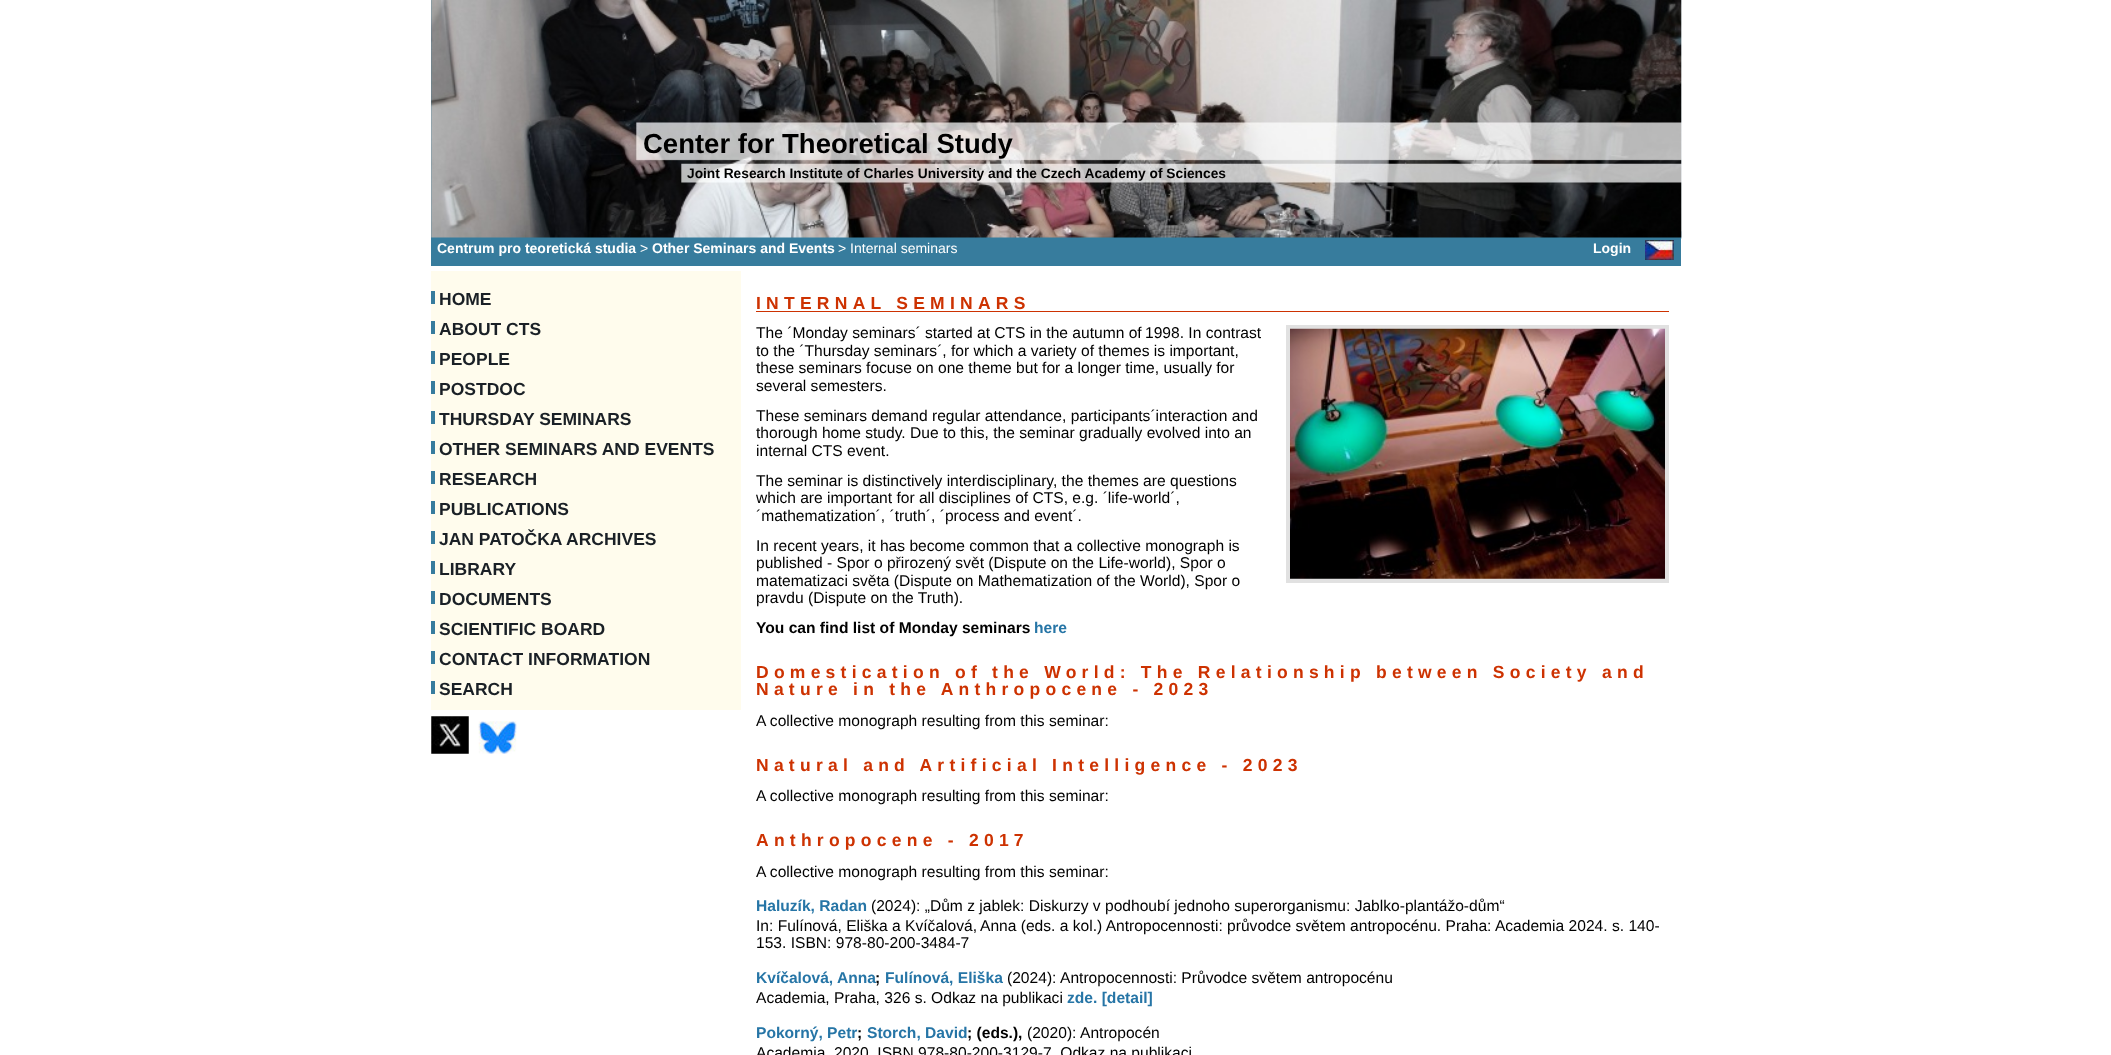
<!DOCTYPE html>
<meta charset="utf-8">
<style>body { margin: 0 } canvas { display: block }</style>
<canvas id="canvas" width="2111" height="1055"></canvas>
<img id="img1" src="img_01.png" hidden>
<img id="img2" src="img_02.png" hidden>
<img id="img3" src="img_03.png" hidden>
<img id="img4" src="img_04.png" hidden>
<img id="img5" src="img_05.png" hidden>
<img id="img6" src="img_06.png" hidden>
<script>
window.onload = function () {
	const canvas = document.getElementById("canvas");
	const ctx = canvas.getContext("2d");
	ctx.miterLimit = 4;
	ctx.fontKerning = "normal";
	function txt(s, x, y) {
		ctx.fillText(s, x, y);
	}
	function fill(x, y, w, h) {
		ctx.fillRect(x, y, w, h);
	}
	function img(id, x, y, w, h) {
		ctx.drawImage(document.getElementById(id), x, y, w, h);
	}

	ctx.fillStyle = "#FFFFFF";
	fill(0, 0, 2111, 1055);
	img("img1", 1681, 0, 1, 239);
	ctx.fillStyle = "#377C9D";
	fill(431, 0, 1250, 266);
	img("img2", 431, 0, 1251, 238);
	img("img3", 1645, 240, 29, 20);
	ctx.fillStyle = "#FFFCED";
	fill(431, 271, 310, 439);
	ctx.fillStyle = "#377C9D";
	fill(431, 291, 4, 13);
	fill(431, 321, 4, 13);
	fill(431, 351, 4, 13);
	fill(431, 381, 4, 13);
	fill(431, 411, 4, 13);
	fill(431, 441, 4, 13);
	fill(431, 471, 4, 13);
	fill(431, 501, 4, 13);
	fill(431, 531, 4, 13);
	fill(431, 561, 4, 13);
	fill(431, 591, 4, 13);
	fill(431, 621, 4, 13);
	fill(431, 651, 4, 13);
	fill(431, 681, 4, 13);
	img("img4", 431, 716, 38, 38);
	img("img5", 478, 721, 39, 33);
	ctx.fillStyle = "#CD3201";
	fill(756, 311, 913, 1);
	ctx.fillStyle = "#E1E1E1";
	fill(1286, 325, 383, 258);
	img("img6", 1290, 328, 375, 251);
	ctx.font = "bold 27.5px Liberation Sans";
	ctx.fillStyle = "#000000";
	txt("Center for Theoretical Study", 643, 153);
	ctx.font = "bold 13.75px Liberation Sans";
	txt("Joint Research Institute of Charles University and the Czech Academy of Sciences", 687, 178);
	ctx.font = "bold 14px Liberation Sans";
	ctx.fillStyle = "#FFFFFF";
	txt("Centrum pro teoretická studia", 437, 253);
	ctx.font = "14px Liberation Sans";
	txt(">", 640, 253);
	ctx.font = "bold 14px Liberation Sans";
	txt("Other Seminars and Events", 652, 253);
	ctx.font = "14px Liberation Sans";
	txt("> Internal seminars", 838, 253);
	ctx.font = "bold 14px Liberation Sans";
	txt("Login", 1593, 253);
	ctx.font = "bold 17.5px Liberation Sans";
	ctx.fillStyle = "#1A2026";
	txt("HOME", 439, 305);
	txt("ABOUT CTS", 439, 335);
	txt("PEOPLE", 439, 365);
	txt("POSTDOC", 439, 395);
	txt("THURSDAY SEMINARS", 439, 425);
	txt("OTHER SEMINARS AND EVENTS", 439, 455);
	txt("RESEARCH", 439, 485);
	txt("PUBLICATIONS", 439, 515);
	txt("JAN PATOČKA ARCHIVES", 439, 545);
	txt("LIBRARY", 439, 575);
	txt("DOCUMENTS", 439, 605);
	txt("SCIENTIFIC BOARD", 439, 635);
	txt("CONTACT INFORMATION", 439, 665);
	txt("SEARCH", 439, 695);
	ctx.letterSpacing = "5.25px";
	ctx.fillStyle = "#CD3201";
	txt("INTERNAL SEMINARS", 756, 309);
	ctx.letterSpacing = "0px";
	ctx.font = "15.6px Liberation Sans";
	ctx.fillStyle = "#000000";
	txt("The ´Monday seminars´ started at CTS in the autumn of", 756, 338);
	txt("1998. In contrast", 1145, 338);
	txt("to the ´Thursday seminars´, for which a variety of themes is important,", 756, 356);
	txt("these seminars focuse on one theme but for a longer time, usually for", 756, 373);
	txt("several semesters.", 756, 391);
	txt("These seminars demand regular attendance, participants´interaction and", 756, 421);
	txt("thorough home study. Due to this, the seminar gradually evolved into an", 756, 438);
	txt("internal CTS event.", 756, 456);
	txt("The seminar is distinctively interdisciplinary, the themes are questions", 756, 486);
	txt("which are important for all disciplines of CTS, e.g. ´life-world´,", 756, 503);
	txt("´mathematization´, ´truth´, ´process and event´.", 756, 521);
	txt("In recent years, it has become common that a collective monograph is", 756, 551);
	txt("published - Spor o přirozený svět (Dispute on the Life-world), Spor o", 756, 568);
	txt("matematizaci světa (Dispute on Mathematization of the World), Spor o", 756, 586);
	txt("pravdu (Dispute on the Truth).", 756, 603);
	ctx.font = "bold 15.6px Liberation Sans";
	txt("You can find list of Monday seminars", 756, 633);
	ctx.fillStyle = "#2675A6";
	txt("here", 1034, 633);
	ctx.letterSpacing = "5.25px";
	ctx.font = "bold 17.5px Liberation Sans";
	ctx.fillStyle = "#CD3201";
	txt("Domestication of the World: The Relationship between Society and", 756, 678);
	txt("Nature in the Anthropocene - 2023", 756, 695);
	ctx.letterSpacing = "0px";
	ctx.font = "15.6px Liberation Sans";
	ctx.fillStyle = "#000000";
	txt("A collective monograph resulting from this seminar:", 756, 726);
	ctx.letterSpacing = "5.25px";
	ctx.font = "bold 17.5px Liberation Sans";
	ctx.fillStyle = "#CD3201";
	txt("Natural and Artificial Intelligence - 2023", 756, 771);
	ctx.letterSpacing = "0px";
	ctx.font = "15.6px Liberation Sans";
	ctx.fillStyle = "#000000";
	txt("A collective monograph resulting from this seminar:", 756, 801);
	ctx.letterSpacing = "5.25px";
	ctx.font = "bold 17.5px Liberation Sans";
	ctx.fillStyle = "#CD3201";
	txt("Anthropocene - 2017", 756, 846);
	ctx.letterSpacing = "0px";
	ctx.font = "15.6px Liberation Sans";
	ctx.fillStyle = "#000000";
	txt("A collective monograph resulting from this seminar:", 756, 877);
	ctx.font = "bold 15.6px Liberation Sans";
	ctx.fillStyle = "#2675A6";
	txt("Haluzík, Radan", 756, 911);
	ctx.font = "15.6px Liberation Sans";
	ctx.fillStyle = "#000000";
	txt("(2024): „Dům z jablek: Diskurzy v podhoubí jednoho superorganismu: Jablko-plantážo-dům“", 871, 911);
	txt("In: Fulínová, Eliška a Kvíčalová,", 756, 931);
	txt("Anna (eds. a kol.) Antropocennosti: průvodce světem antropocénu. Praha: Academia 2024. s. 140-", 980, 931);
	txt("153. ISBN: 978-80-200-3484-7", 756, 948);
	ctx.font = "bold 15.6px Liberation Sans";
	ctx.fillStyle = "#2675A6";
	txt("Kvíčalová, Anna", 756, 983);
	ctx.fillStyle = "#000000";
	txt(";", 875, 983);
	ctx.fillStyle = "#2675A6";
	txt("Fulínová, Eliška", 885, 983);
	ctx.font = "15.6px Liberation Sans";
	ctx.fillStyle = "#000000";
	txt("(2024):", 1007, 983);
	txt("Antropocennosti: Průvodce světem antropocénu", 1060, 983);
	txt("Academia, Praha, 326 s. Odkaz na publikaci", 756, 1003);
	ctx.font = "bold 15.6px Liberation Sans";
	ctx.fillStyle = "#2675A6";
	txt("zde. [detail]", 1067, 1003);
	txt("Pokorný, Petr", 756, 1038);
	ctx.fillStyle = "#000000";
	txt(";", 857, 1038);
	ctx.fillStyle = "#2675A6";
	txt("Storch, David", 867, 1038);
	ctx.fillStyle = "#000000";
	txt("; (eds.),", 967, 1038);
	ctx.font = "15.6px Liberation Sans";
	txt("(2020):", 1027, 1038);
	txt("Antropocén", 1080, 1038);
	txt("Academia, 2020. ISBN 978-80-200-3129-7. Odkaz na publikaci", 756, 1058);
};
</script>
